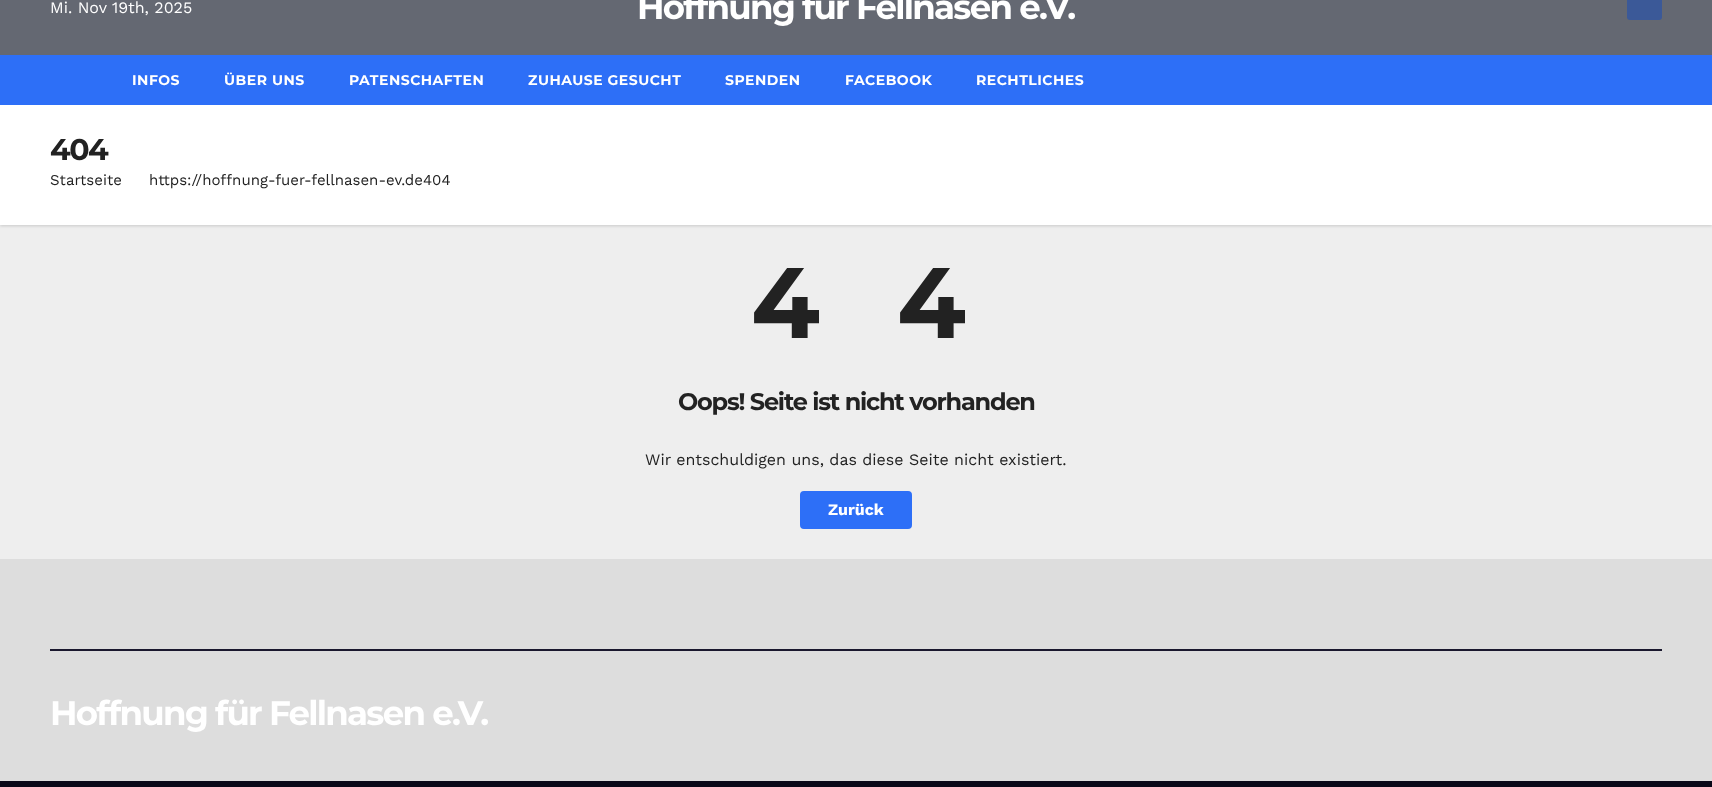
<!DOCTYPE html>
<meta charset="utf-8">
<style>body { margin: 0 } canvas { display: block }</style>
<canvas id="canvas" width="1712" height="787"></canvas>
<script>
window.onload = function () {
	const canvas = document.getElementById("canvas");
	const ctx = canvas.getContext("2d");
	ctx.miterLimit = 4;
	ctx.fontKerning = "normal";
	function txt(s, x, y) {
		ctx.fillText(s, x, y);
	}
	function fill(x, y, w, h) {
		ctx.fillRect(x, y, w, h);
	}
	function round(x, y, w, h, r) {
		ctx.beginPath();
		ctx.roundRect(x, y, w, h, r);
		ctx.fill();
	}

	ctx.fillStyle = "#EEEEEE";
	fill(0, 0, 1712, 787);
	ctx.fillStyle = "#646872";
	fill(0, 0, 1712, 55);
	ctx.fillStyle = "#3B5998";
	round(1627, -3, 35, 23, 3);
	ctx.fillStyle = "rgba(0, 0, 0, 0.15)";
	ctx.filter = "blur(1.5px)";
	ctx.beginPath();
	ctx.rect(0, 106, 1712, 120);
	ctx.fill();
	ctx.filter = "none";
	ctx.fillStyle = "#2D6FF7";
	fill(0, 55, 1712, 50);
	ctx.fillStyle = "#FFFFFF";
	fill(0, 105, 1712, 120);
	ctx.fillStyle = "#2D6FF7";
	ctx.beginPath();
	ctx.roundRect(801, 492, 110, 36, 3);
	ctx.fill();
	ctx.strokeStyle = "#2D6FF7";
	ctx.lineWidth = 2;
	ctx.stroke();
	ctx.fillStyle = "#DDDDDD";
	fill(0, 559, 1712, 222);
	ctx.fillStyle = "#1A182E";
	fill(50, 649, 1612, 2);
	ctx.fillStyle = "#090818";
	fill(0, 781, 1712, 6);
	ctx.font = "16px Work Sans";
	ctx.fillStyle = "#FFFFFF";
	txt("Mi. Nov 19th, 2025", 50, 13);
	ctx.letterSpacing = "-1.7px";
	ctx.font = "bold 34px Montserrat";
	txt("Hoffnung für Fellnasen e.V.", 637, 19);
	ctx.letterSpacing = "0.5px";
	ctx.font = "bold 14px Montserrat";
	txt("INFOS", 132, 85);
	txt("ÜBER UNS", 224, 85);
	txt("PATENSCHAFTEN", 349, 85);
	txt("ZUHAUSE GESUCHT", 528, 85);
	txt("SPENDEN", 725, 85);
	txt("FACEBOOK", 845, 85);
	txt("RECHTLICHES", 976, 85);
	ctx.letterSpacing = "-1.5px";
	ctx.font = "bold 30px Montserrat";
	ctx.fillStyle = "#222222";
	txt("404", 50, 160);
	ctx.letterSpacing = "0px";
	ctx.font = "15px Work Sans";
	txt("Startseite", 50, 185);
	txt("https://hoffnung-fuer-fellnasen-ev.de404", 149, 185);
	ctx.letterSpacing = "-5px";
	ctx.font = "bold 100px Montserrat";
	txt("4", 751, 338);
	txt("4", 897, 338);
	ctx.letterSpacing = "-1.2px";
	ctx.font = "bold 24px Montserrat";
	txt("Oops! Seite ist nicht vorhanden", 678, 410);
	ctx.letterSpacing = "0px";
	ctx.font = "16px Work Sans";
	txt("Wir entschuldigen uns, das diese Seite nicht existiert.", 645, 465);
	ctx.font = "bold 16px Work Sans";
	ctx.fillStyle = "#FFFFFF";
	txt("Zurück", 828, 515);
	ctx.letterSpacing = "-1.7px";
	ctx.font = "bold 34px Montserrat";
	txt("Hoffnung für Fellnasen e.V.", 50, 725);
};
</script>
